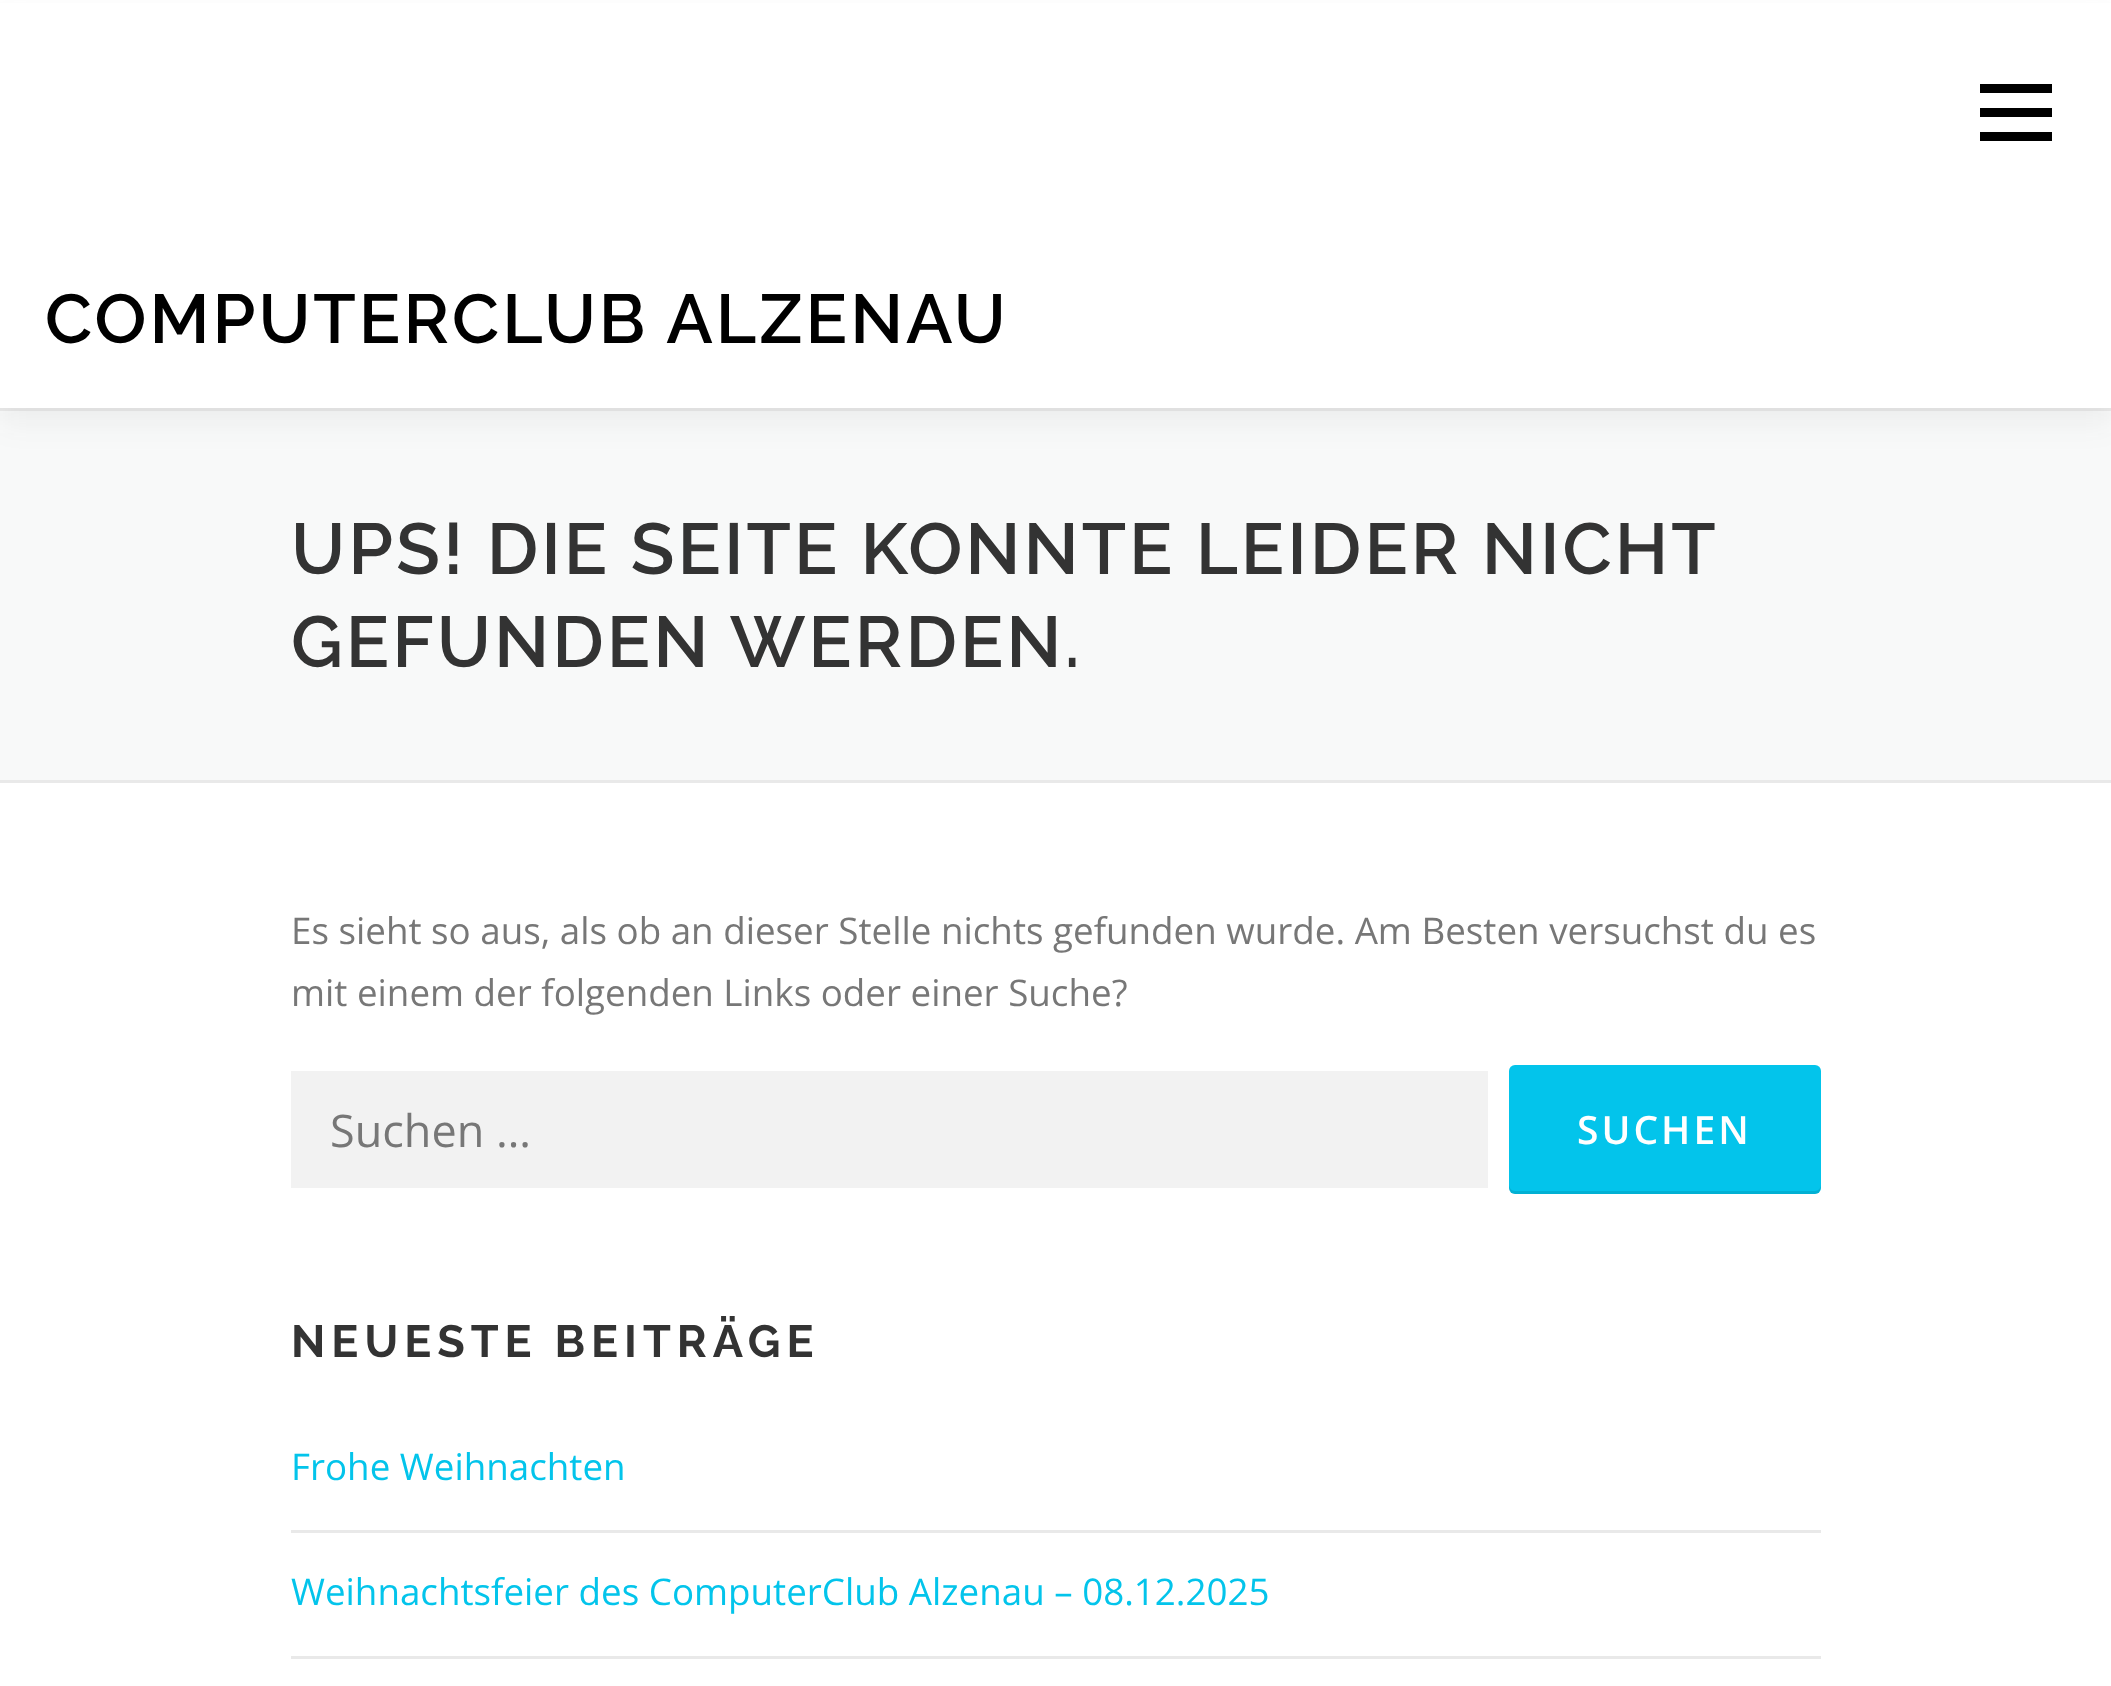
<!DOCTYPE html>
<meta charset="utf-8">
<style>body { margin: 0 } canvas { display: block }</style>
<canvas id="canvas" width="2111" height="1686"></canvas>
<script>
window.onload = function () {
	const canvas = document.getElementById("canvas");
	const ctx = canvas.getContext("2d");
	ctx.miterLimit = 4;
	ctx.fontKerning = "normal";
	function txt(s, x, y) {
		ctx.fillText(s, x, y);
	}
	function fill(x, y, w, h) {
		ctx.fillRect(x, y, w, h);
	}
	function round(x, y, w, h, r) {
		ctx.beginPath();
		ctx.roundRect(x, y, w, h, r);
		ctx.fill();
	}

	ctx.fillStyle = "#FFFFFF";
	fill(0, 0, 2111, 1686);
	ctx.fillStyle = "#F8F9F9";
	fill(0, 411, 2111, 369);
	ctx.fillStyle = "#E9E9E9";
	fill(0, 408, 2111, 3);
	ctx.fillStyle = "rgba(50, 50, 50, 0.06)";
	ctx.filter = "blur(15px)";
	ctx.beginPath();
	ctx.rect(0, 15, 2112, 408);
	ctx.fill();
	ctx.filter = "none";
	ctx.fillStyle = "#FFFFFF";
	fill(0, 3, 2111, 405);
	ctx.fillStyle = "#000000";
	fill(1980, 108, 72, 9);
	fill(1980, 84, 72, 9);
	fill(1980, 132, 72, 9);
	ctx.fillStyle = "#E9E9E9";
	fill(0, 780, 2111, 3);
	ctx.fillStyle = "#F2F2F2";
	fill(291, 1071, 1197, 117);
	ctx.fillStyle = "#03C4EB";
	round(1509, 1065, 312, 129, 6);
	ctx.fillStyle = "rgba(0, 0, 0, 0.1)";
	ctx.beginPath();
	ctx.moveTo(1509, 1185);
	ctx.bezierCurveTo(1509, 1189, 1509, 1193, 1514, 1194);
	ctx.lineTo(1815, 1194);
	ctx.bezierCurveTo(1820, 1194, 1821, 1189, 1821, 1185);
	ctx.bezierCurveTo(1821, 1188, 1818, 1191, 1815, 1191);
	ctx.lineTo(1515, 1191);
	ctx.bezierCurveTo(1512, 1191, 1509, 1188, 1509, 1185);
	ctx.closePath();
	ctx.fill();
	ctx.fillStyle = "#E9E9E9";
	fill(291, 1530, 1530, 3);
	fill(291, 1656, 1530, 3);
	ctx.letterSpacing = "3px";
	ctx.font = "600 69px Raleway";
	ctx.fillStyle = "#000000";
	txt("COMPUTERCLUB ALZENAU", 45, 343);
	ctx.wordSpacing = "-0.5px";
	ctx.font = "600 72px Raleway";
	ctx.fillStyle = "#333333";
	txt("UPS! DIE SEITE KONNTE LEIDER NICHT", 291, 574);
	ctx.wordSpacing = "0px";
	txt("GEFUNDEN WERDEN.", 291, 667);
	ctx.letterSpacing = "0px";
	ctx.font = "36.75px Open Sans";
	ctx.fillStyle = "#777777";
	txt("Es sieht so aus, als ob an dieser Stelle nichts gefunden wurde. Am Besten versuchst du es", 291, 944);
	txt("mit einem der folgenden Links oder einer Suche?", 291, 1006);
	ctx.font = "45px Open Sans";
	txt("Suchen …", 330, 1147);
	ctx.letterSpacing = "3px";
	ctx.font = "600 39px Open Sans";
	ctx.fillStyle = "#FFFFFF";
	txt("SUCHEN", 1577, 1144);
	ctx.letterSpacing = "6px";
	ctx.font = "bold 45px Raleway";
	ctx.fillStyle = "#333333";
	txt("NEUESTE BEITRÄGE", 291, 1357);
	ctx.letterSpacing = "0px";
	ctx.font = "36.75px Open Sans";
	ctx.fillStyle = "#03C4EB";
	txt("Frohe Weihnachten", 291, 1480);
	txt("Weihnachtsfeier des ComputerClub Alzenau – 08.12.2025", 291, 1605);
};
</script>
